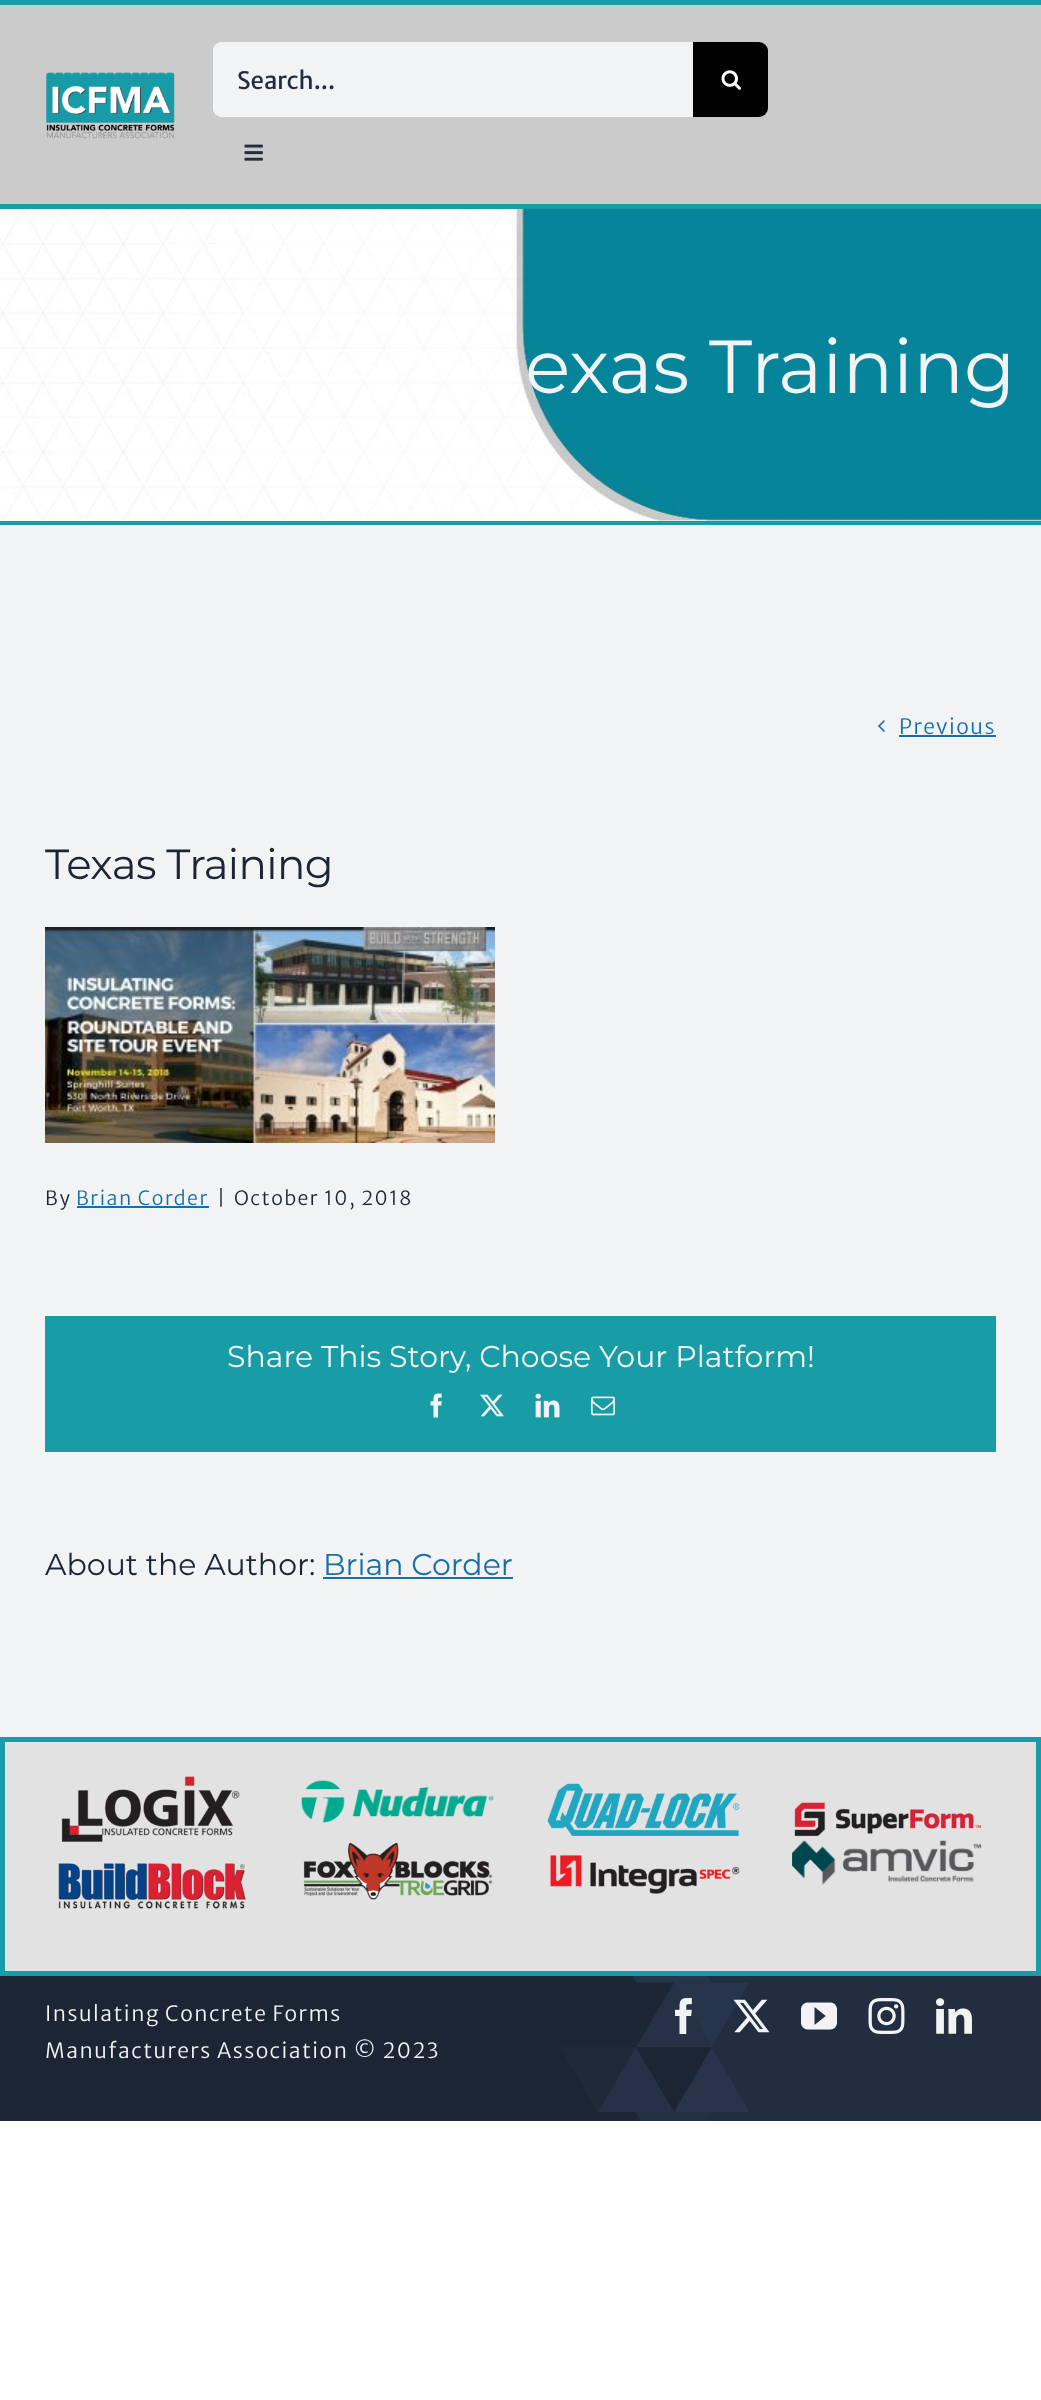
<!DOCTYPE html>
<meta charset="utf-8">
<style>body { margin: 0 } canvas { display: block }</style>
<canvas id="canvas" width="1041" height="2400"></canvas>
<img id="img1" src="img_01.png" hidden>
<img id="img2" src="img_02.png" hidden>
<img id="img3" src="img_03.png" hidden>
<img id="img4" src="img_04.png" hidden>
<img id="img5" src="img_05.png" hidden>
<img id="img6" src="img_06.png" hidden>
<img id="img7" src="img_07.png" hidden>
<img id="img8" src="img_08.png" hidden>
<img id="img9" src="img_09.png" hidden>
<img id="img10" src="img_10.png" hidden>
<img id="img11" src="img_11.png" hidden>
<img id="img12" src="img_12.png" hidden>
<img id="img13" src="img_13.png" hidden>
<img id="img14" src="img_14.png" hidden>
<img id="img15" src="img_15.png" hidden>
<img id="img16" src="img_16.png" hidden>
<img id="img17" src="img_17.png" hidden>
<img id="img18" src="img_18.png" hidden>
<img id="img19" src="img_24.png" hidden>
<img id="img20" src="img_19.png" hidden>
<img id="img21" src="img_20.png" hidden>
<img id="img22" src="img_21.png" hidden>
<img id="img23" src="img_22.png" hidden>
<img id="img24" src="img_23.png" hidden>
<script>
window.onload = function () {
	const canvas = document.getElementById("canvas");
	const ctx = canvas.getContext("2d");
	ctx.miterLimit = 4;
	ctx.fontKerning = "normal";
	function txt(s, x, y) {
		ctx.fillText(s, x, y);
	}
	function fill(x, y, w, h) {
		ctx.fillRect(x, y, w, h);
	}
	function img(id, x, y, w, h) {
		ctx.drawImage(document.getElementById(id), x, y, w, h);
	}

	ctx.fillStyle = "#FFFFFF";
	fill(0, 0, 1041, 2400);
	ctx.fillStyle = "#F2F3F5";
	fill(0, 525, 1041, 1212);
	ctx.fillStyle = "#CBCBCB";
	fill(0, 5, 1041, 199);
	ctx.fillStyle = "#189DA6";
	fill(0, 0, 1041, 5);
	fill(0, 204, 1041, 5);
	img("img1", 45, 72, 130, 67);
	ctx.fillStyle = "#F2F3F5";
	ctx.beginPath();
	ctx.roundRect(213, 42, 480, 75, [9, 0, 0, 9]);
	ctx.fill();
	ctx.beginPath();
	ctx.moveTo(222, 42);
	ctx.lineTo(693, 42);
	ctx.lineTo(693, 117);
	ctx.lineTo(222, 117);
	ctx.bezierCurveTo(217, 117, 213, 113, 213, 108);
	ctx.lineTo(213, 51);
	ctx.bezierCurveTo(213, 46, 217, 42, 222, 42);
	ctx.closePath();
	ctx.moveTo(222, 44);
	ctx.lineTo(693, 44);
	ctx.lineTo(693, 116);
	ctx.lineTo(222, 116);
	ctx.bezierCurveTo(218, 116, 214, 112, 214, 108);
	ctx.lineTo(214, 51);
	ctx.bezierCurveTo(214, 47, 218, 44, 222, 44);
	ctx.closePath();
	ctx.fill("evenodd");
	ctx.fillStyle = "#000000";
	ctx.beginPath();
	ctx.roundRect(693, 42, 75, 75, [0, 9, 9, 0]);
	ctx.fill();
	img("img2", 721, 70, 20, 20);
	img("img3", 244, 144, 19, 17);
	img("img4", 0, 209, 1041, 312);
	ctx.fillStyle = "#189DA6";
	fill(0, 521, 1041, 4);
	img("img5", 878, 720, 7, 12);
	ctx.fillStyle = "#176FA6";
	fill(899, 735, 97, 2);
	img("img6", 45, 927, 450, 216);
	fill(77, 1206, 132, 2);
	ctx.fillStyle = "#189DA6";
	fill(45, 1316, 951, 136);
	img("img7", 430, 1393, 12, 25);
	img("img8", 480, 1394, 24, 23);
	img("img9", 535, 1393, 25, 25);
	img("img10", 591, 1396, 24, 20);
	ctx.fillStyle = "#176FA6";
	fill(323, 1577, 190, 2);
	ctx.fillStyle = "#E2E2E2";
	ctx.beginPath();
	ctx.rect(2.5, 1739.5, 1036, 234);
	ctx.fill();
	ctx.strokeStyle = "#189DA6";
	ctx.lineWidth = 5;
	ctx.stroke();
	img("img11", 61, 1776, 179, 66);
	img("img12", 58, 1863, 188, 46);
	img("img13", 301, 1780, 193, 43);
	img("img14", 303, 1842, 190, 58);
	img("img15", 547, 1783, 193, 53);
	img("img16", 550, 1855, 190, 39);
	img("img17", 794, 1802, 188, 35);
	img("img18", 792, 1840, 190, 45);
	ctx.fillStyle = "#1B2533";
	fill(0, 1976, 808, 145);
	img("img19", 560, 1976, 481, 145);
	img("img20", 675, 1998, 17, 36);
	img("img21", 733, 1999, 37, 34);
	img("img22", 801, 2002, 36, 28);
	img("img23", 868, 1998, 37, 36);
	img("img24", 936, 1998, 36, 36);
	ctx.font = "24px Merriweather Sans";
	ctx.fillStyle = "#222E40";
	txt("Search...", 237, 89);
	ctx.font = "100 75px Montserrat";
	ctx.fillStyle = "#F2F3F5";
	txt("exas Training", 525, 393);
	ctx.letterSpacing = "1.5px";
	ctx.font = "300 21px Merriweather Sans";
	ctx.fillStyle = "#176FA6";
	txt("Previous", 899, 734);
	ctx.letterSpacing = "-0.6px";
	ctx.font = "100 42px Montserrat";
	ctx.fillStyle = "#1B2533";
	txt("Texas Training", 45, 879);
	ctx.letterSpacing = "1.5px";
	ctx.font = "300 19.5px Merriweather Sans";
	txt("By", 45, 1205);
	ctx.fillStyle = "#176FA6";
	txt("Brian Corder", 76, 1205);
	ctx.fillStyle = "#1B2533";
	txt("|", 217, 1205);
	txt("October 10, 2018", 234, 1205);
	ctx.letterSpacing = "0px";
	ctx.font = "100 30px Montserrat";
	ctx.fillStyle = "#F2F3F5";
	txt("Share This Story, Choose Your Platform!", 227, 1367);
	ctx.fillStyle = "#1B2533";
	txt("About the Author:", 45, 1575);
	ctx.fillStyle = "#176FA6";
	txt("Brian Corder", 323, 1575);
	ctx.letterSpacing = "1.5px";
	ctx.font = "300 21px Merriweather Sans";
	ctx.fillStyle = "#F2F3F5";
	txt("Insulating Concrete Forms", 45, 2021);
	txt("Manufacturers Association © 2023", 45, 2058);
};
</script>
